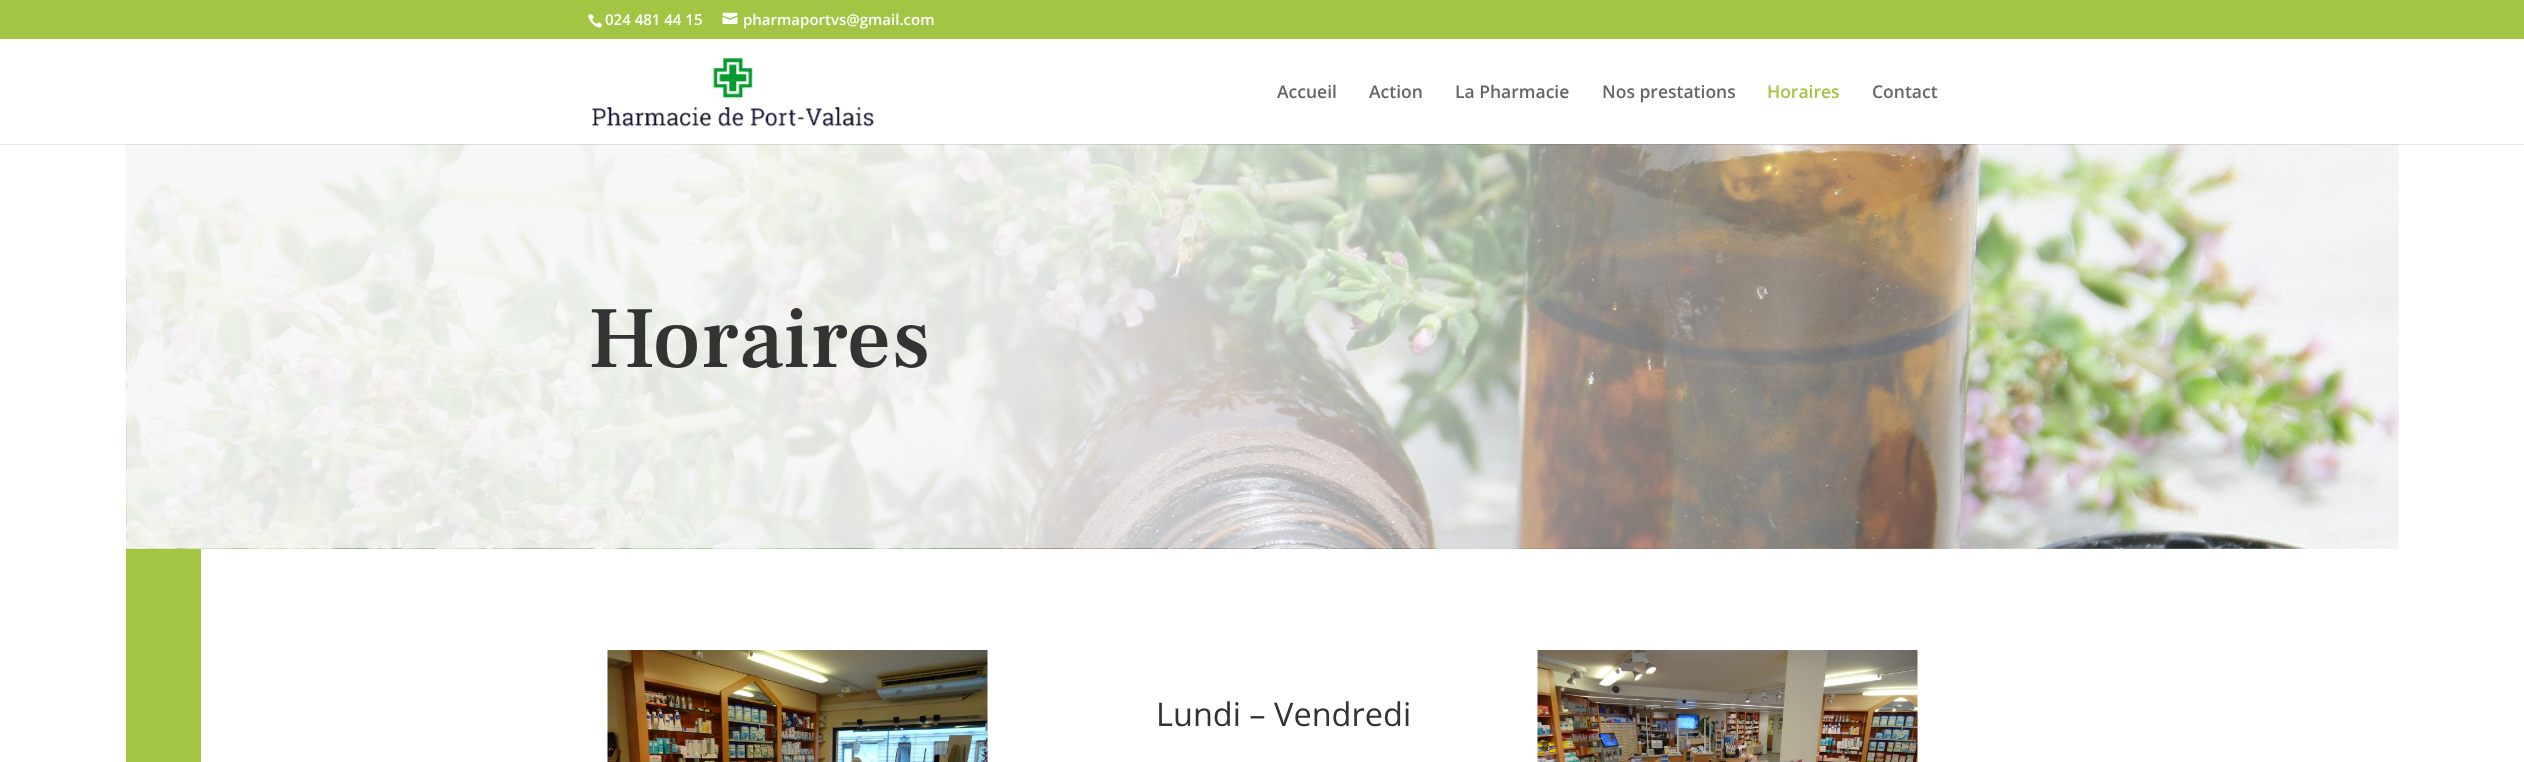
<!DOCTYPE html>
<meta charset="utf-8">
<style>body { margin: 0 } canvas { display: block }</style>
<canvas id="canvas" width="2524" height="762"></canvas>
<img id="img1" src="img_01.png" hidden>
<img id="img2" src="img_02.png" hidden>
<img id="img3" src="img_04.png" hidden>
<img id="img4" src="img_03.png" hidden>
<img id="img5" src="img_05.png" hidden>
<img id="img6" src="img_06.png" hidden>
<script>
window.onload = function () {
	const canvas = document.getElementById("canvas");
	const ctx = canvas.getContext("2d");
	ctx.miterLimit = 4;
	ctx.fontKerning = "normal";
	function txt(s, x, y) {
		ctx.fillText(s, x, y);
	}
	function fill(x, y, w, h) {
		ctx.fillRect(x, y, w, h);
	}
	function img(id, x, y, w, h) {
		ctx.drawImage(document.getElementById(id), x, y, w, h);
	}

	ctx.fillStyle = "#FFFFFF";
	fill(0, 0, 2524, 762);
	ctx.fillStyle = "#A2C543";
	fill(0, 0, 2524, 39);
	img("img1", 588, 14, 14, 14);
	img("img2", 722, 12, 16, 13);
	img("img3", 126, 144, 2273, 405);
	ctx.fillStyle = "rgba(0, 0, 0, 0.1)";
	fill(0, 144, 2524, 1);
	img("img4", 592, 58, 282, 69);
	ctx.fillStyle = "#A2C543";
	fill(126, 549, 75, 213);
	img("img5", 607, 650, 381, 112);
	img("img6", 1537, 650, 381, 112);
	ctx.font = "600 15px Open Sans";
	ctx.fillStyle = "#FFFFFF";
	txt("024 481 44 15", 605, 25);
	txt("pharmaportvs@gmail.com", 743, 25);
	ctx.font = "600 17.5px Open Sans";
	ctx.fillStyle = "#666666";
	txt("Accueil", 1277, 98);
	txt("Action", 1369, 98);
	txt("La Pharmacie", 1455, 98);
	txt("Nos prestations", 1602, 98);
	ctx.fillStyle = "#A2C543";
	txt("Horaires", 1767, 98);
	ctx.fillStyle = "#666666";
	txt("Contact", 1872, 98);
	ctx.font = "500 87.5px Frank Ruhl Libre";
	ctx.fillStyle = "#333333";
	txt("Horaires", 588, 367);
	ctx.font = "32.5px Open Sans";
	txt("Lundi – Vendredi", 1156, 726);
};
</script>
